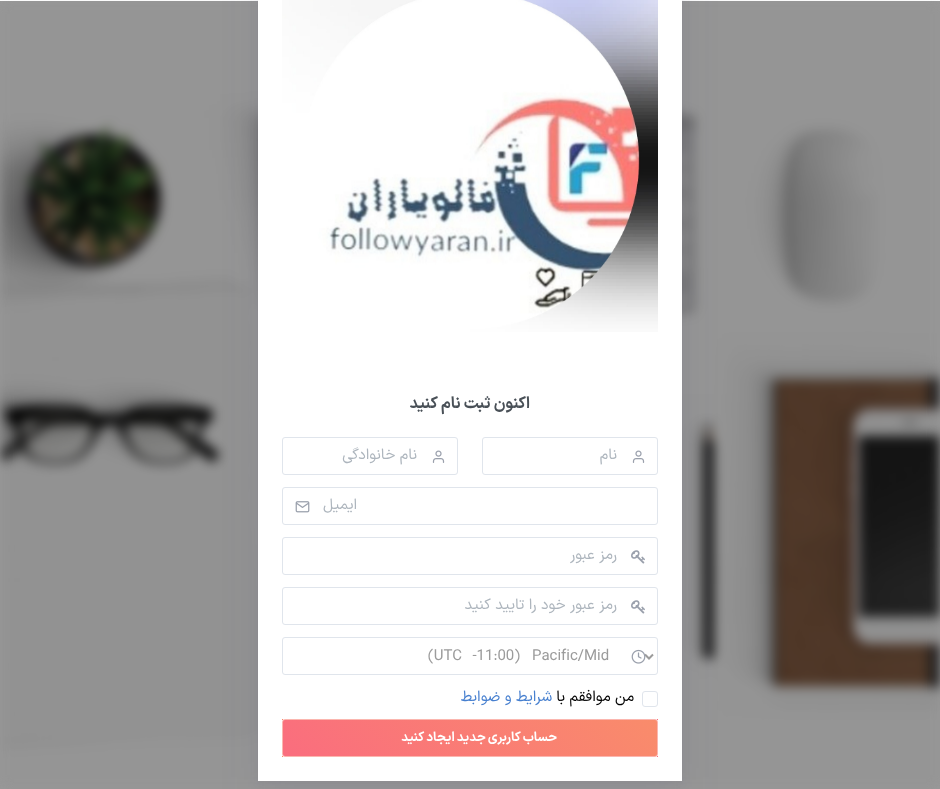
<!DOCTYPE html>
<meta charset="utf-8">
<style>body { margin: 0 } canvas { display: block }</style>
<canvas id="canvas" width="940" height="789"></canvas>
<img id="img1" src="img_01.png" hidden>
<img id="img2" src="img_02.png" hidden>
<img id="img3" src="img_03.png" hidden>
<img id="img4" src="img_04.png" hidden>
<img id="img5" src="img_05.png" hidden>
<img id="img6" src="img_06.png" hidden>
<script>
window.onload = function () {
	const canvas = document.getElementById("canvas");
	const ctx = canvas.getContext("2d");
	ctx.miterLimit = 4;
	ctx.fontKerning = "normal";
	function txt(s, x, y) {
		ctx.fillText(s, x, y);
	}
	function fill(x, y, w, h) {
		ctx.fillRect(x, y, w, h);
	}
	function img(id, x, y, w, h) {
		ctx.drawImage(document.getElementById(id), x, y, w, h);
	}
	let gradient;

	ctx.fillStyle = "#FFFFFF";
	fill(0, 0, 940, 789);
	ctx.fillStyle = "#999999";
	fill(0, 1, 940, 788);
	img("img1", 0, 0, 940, 789);
	ctx.fillStyle = "rgba(62, 57, 107, 0.06)";
	ctx.filter = "blur(4.5px)";
	ctx.beginPath();
	ctx.rect(258, -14, 424, 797);
	ctx.fill();
	ctx.filter = "none";
	ctx.fillStyle = "rgba(62, 57, 107, 0.07)";
	ctx.filter = "blur(20px)";
	ctx.beginPath();
	ctx.rect(258, -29, 424, 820);
	ctx.fill();
	ctx.filter = "none";
	ctx.fillStyle = "#FFFFFF";
	fill(258, 0, 424, 781);
	img("img2", 282, 0, 376, 332);
	ctx.beginPath();
	ctx.roundRect(482.5, 437.5, 175, 37, 2.5);
	ctx.strokeStyle = "#E0E5EC";
	ctx.stroke();
	img("img3", 632, 450, 13, 13);
	ctx.beginPath();
	ctx.roundRect(282.5, 437.5, 175, 37, 2.5);
	ctx.stroke();
	img("img3", 432, 450, 13, 13);
	ctx.beginPath();
	ctx.roundRect(282.5, 487.5, 375, 37, 2.5);
	ctx.stroke();
	img("img4", 295, 501, 15, 12);
	ctx.beginPath();
	ctx.roundRect(282.5, 537.5, 375, 37, 2.5);
	ctx.stroke();
	img("img5", 631, 550, 14, 14);
	ctx.beginPath();
	ctx.roundRect(282.5, 587.5, 375, 37, 2.5);
	ctx.stroke();
	img("img5", 631, 600, 14, 14);
	ctx.beginPath();
	ctx.roundRect(282.5, 637.5, 375, 37, 2.5);
	ctx.stroke();
	ctx.beginPath();
	ctx.moveTo(645, 654.5);
	ctx.lineTo(649, 658.5);
	ctx.lineTo(653, 654.5);
	ctx.strokeStyle = "#9B9B9B";
	ctx.lineWidth = 2;
	ctx.stroke();
	img("img6", 631, 649, 15, 15);
	ctx.beginPath();
	ctx.roundRect(642.5, 691.5, 15, 15, 2.5);
	ctx.strokeStyle = "#E0E5EC";
	ctx.lineWidth = 1;
	ctx.stroke();
	gradient = ctx.createLinearGradient(-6.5, 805, 199, 600);
	gradient.addColorStop(0, "#FA6D7E");
	gradient.addColorStop(1, "#F98C6B");
	ctx.fillStyle = gradient;
	fill(282, 719, 1, 1);
	gradient = ctx.createLinearGradient(742, 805, 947, 600);
	gradient.addColorStop(0, "#FA6D7E");
	gradient.addColorStop(1, "#F98C6B");
	ctx.fillStyle = gradient;
	fill(657, 719, 1, 1);
	gradient = ctx.createLinearGradient(368, 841, 573, 636);
	gradient.addColorStop(0, "#FA6D7E");
	gradient.addColorStop(1, "#F98C6B");
	ctx.fillStyle = gradient;
	fill(283, 720, 374, 36);
	gradient = ctx.createLinearGradient(-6.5, 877, 199, 672);
	gradient.addColorStop(0, "#FA6D7E");
	gradient.addColorStop(1, "#F98C6B");
	ctx.fillStyle = gradient;
	fill(282, 756, 1, 1);
	gradient = ctx.createLinearGradient(742, 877, 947, 672);
	gradient.addColorStop(0, "#FA6D7E");
	gradient.addColorStop(1, "#F98C6B");
	ctx.fillStyle = gradient;
	fill(657, 756, 1, 1);
	ctx.beginPath();
	ctx.roundRect(282.5, 719.5, 375, 37, 2.5);
	ctx.strokeStyle = "#FBB6AF";
	ctx.stroke();
	ctx.direction = "rtl";
	ctx.font = "bold 16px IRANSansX";
	ctx.fillStyle = "#495057";
	txt("اکنون ثبت نام کنید", 530, 408);
	ctx.font = "15px IRANSansX";
	ctx.fillStyle = "#ADB5BD";
	txt("نام", 617, 459);
	txt("نام خانوادگی", 417, 459);
	txt("ایمیل", 357, 509);
	txt("رمز عبور", 617, 559);
	txt("رمز عبور خود را تایید کنید", 617, 609);
	ctx.direction = "ltr";
	ctx.fillStyle = "#9B9B9B";
	txt("Pacific/Mid", 532, 660);
	ctx.wordSpacing = "6px";
	txt("(UTC -11:00)", 428, 660);
	ctx.wordSpacing = "0px";
	ctx.direction = "rtl";
	ctx.fillStyle = "#000000";
	txt("من موافقم با", 634, 701);
	ctx.fillStyle = "#467FCF";
	txt("شرایط و ضوابط", 552, 701);
	ctx.letterSpacing = "0.4px";
	ctx.wordSpacing = "-1px";
	ctx.font = "bold 13px IRANSansX";
	ctx.fillStyle = "#FFFFFF";
	txt("حساب کاربری جدید ایجاد کنید", 557, 741);
};
</script>
